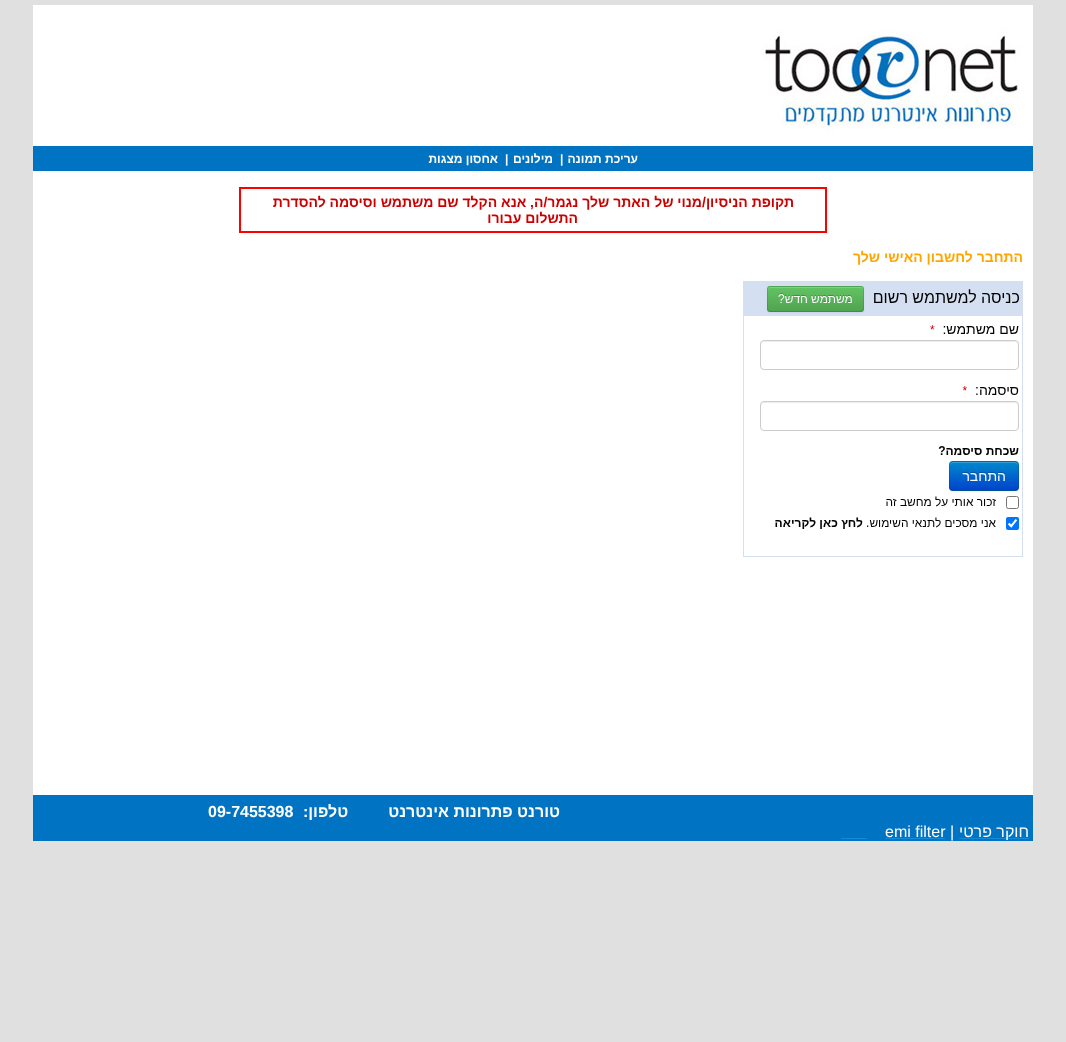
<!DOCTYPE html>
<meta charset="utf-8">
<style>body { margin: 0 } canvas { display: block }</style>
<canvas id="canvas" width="1066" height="1042"></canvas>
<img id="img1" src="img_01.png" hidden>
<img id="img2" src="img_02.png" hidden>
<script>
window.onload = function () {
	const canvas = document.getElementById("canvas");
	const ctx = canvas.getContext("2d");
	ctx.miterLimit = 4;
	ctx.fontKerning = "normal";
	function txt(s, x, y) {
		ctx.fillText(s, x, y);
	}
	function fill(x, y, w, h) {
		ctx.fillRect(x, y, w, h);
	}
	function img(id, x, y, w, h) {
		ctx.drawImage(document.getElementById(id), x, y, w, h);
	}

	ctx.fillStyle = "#E0E0E0";
	fill(0, 0, 1066, 1042);
	img("img1", 33, 5, 1000, 141);
	ctx.fillStyle = "#0073C3";
	fill(33, 146, 1000, 25);
	ctx.fillStyle = "#FFFFFF";
	fill(33, 171, 1000, 624);
	ctx.strokeStyle = "#FF0000";
	ctx.lineWidth = 2;
	ctx.strokeRect(240, 188, 586, 44);
	img("img2", 743, 281, 280, 276);
	ctx.fillStyle = "#0073C3";
	fill(33, 795, 1000, 46);
	ctx.fillStyle = "#0F8DDB";
	fill(959, 838, 70, 1);
	fill(885, 838, 60, 1);
	fill(841, 838, 26, 1);
	ctx.direction = "rtl";
	ctx.font = "bold 12px Liberation Sans";
	ctx.fillStyle = "#FFFFFF";
	txt("עריכת תמונה", 638, 163);
	ctx.direction = "ltr";
	txt("|", 560, 163);
	ctx.direction = "rtl";
	txt("מילונים", 553, 163);
	ctx.direction = "ltr";
	txt("|", 505, 163);
	ctx.direction = "rtl";
	txt("אחסון מצגות", 498, 163);
	ctx.font = "bold 14px Liberation Sans";
	ctx.fillStyle = "#CC0000";
	txt("תקופת הניסיון/מנוי של האתר שלך נגמר/ה, אנא הקלד שם משתמש וסיסמה להסדרת", 794, 207);
	txt("התשלום עבורו", 578, 223);
	ctx.fillStyle = "#FFA500";
	txt("התחבר לחשבון האישי שלך", 1023, 262);
	ctx.font = "bold 16px Liberation Sans";
	ctx.fillStyle = "#FFFFFF";
	txt("טורנט פתרונות אינטרנט         טלפון:", 560, 817);
	ctx.direction = "ltr";
	txt("09-7455398", 208, 817);
	ctx.direction = "rtl";
	ctx.font = "16px Liberation Sans";
	txt("חוקר פרטי", 1029, 837);
	ctx.direction = "ltr";
	txt("|", 950, 837);
	txt("emi filter", 885, 837);
};
</script>
